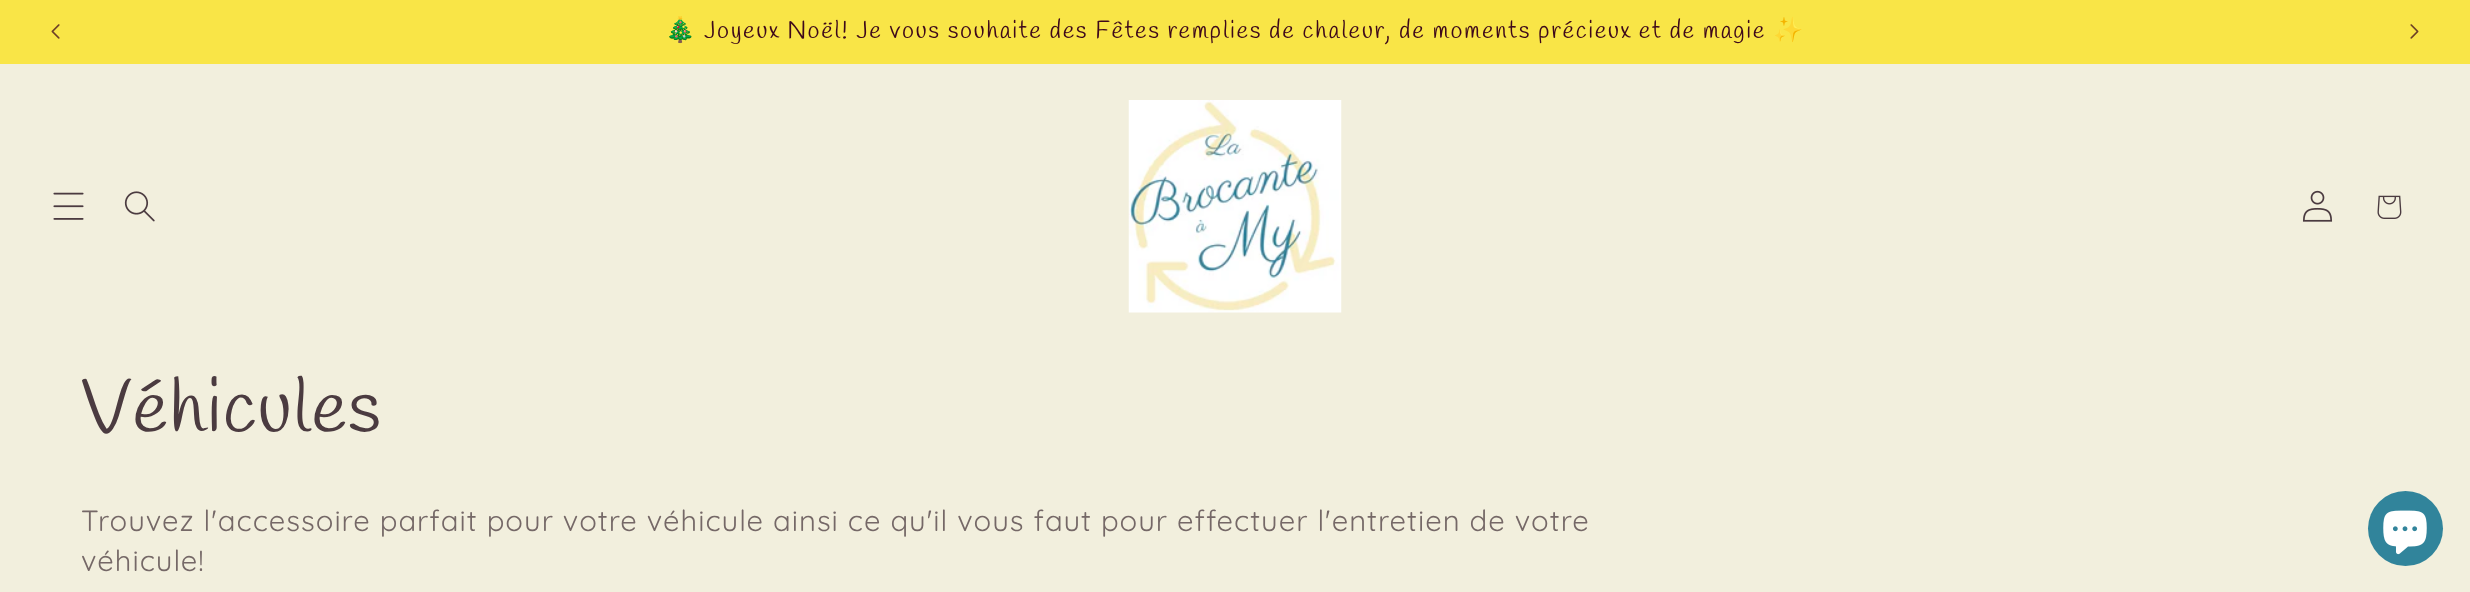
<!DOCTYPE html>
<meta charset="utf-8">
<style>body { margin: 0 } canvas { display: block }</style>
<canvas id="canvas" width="2470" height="592"></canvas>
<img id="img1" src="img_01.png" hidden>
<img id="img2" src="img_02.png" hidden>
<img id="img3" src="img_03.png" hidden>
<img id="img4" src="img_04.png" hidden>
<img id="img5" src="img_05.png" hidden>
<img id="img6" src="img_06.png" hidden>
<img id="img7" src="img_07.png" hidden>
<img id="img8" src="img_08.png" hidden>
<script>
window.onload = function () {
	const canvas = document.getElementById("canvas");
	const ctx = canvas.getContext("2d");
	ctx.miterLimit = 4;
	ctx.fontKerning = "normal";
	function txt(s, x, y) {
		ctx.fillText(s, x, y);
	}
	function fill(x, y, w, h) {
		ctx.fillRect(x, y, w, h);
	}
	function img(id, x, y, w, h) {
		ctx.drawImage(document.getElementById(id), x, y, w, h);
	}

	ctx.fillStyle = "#F2EFDD";
	fill(0, 0, 2470, 592);
	ctx.fillStyle = "#F9E547";
	fill(0, 0, 2470, 64);
	img("img1", 51, 24, 9, 15);
	img("img2", 2410, 24, 9, 15);
	img("img3", 53, 192, 31, 28);
	img("img4", 124, 191, 31, 31);
	img("img5", 1128, 100, 214, 213);
	img("img6", 2302, 190, 31, 32);
	img("img7", 2377, 195, 25, 24);
	ctx.fillStyle = "#31849B";
	ctx.beginPath();
	ctx.arc(2405.5, 528.5, 37.5, 0, Math.PI * 2);
	ctx.fill();
	img("img8", 2383, 510, 44, 45);
	ctx.letterSpacing = "1.62px";
	ctx.font = "24.4px Noto Color Emoji";
	ctx.fillStyle = "#3D081B";
	txt("🎄", 665, 38);
	ctx.font = "24.4px Handlee";
	txt("Joyeux Noël! Je vous souhaite des Fêtes remplies de chaleur, de moments précieux et de magie", 704, 38);
	ctx.font = "24.4px Noto Color Emoji";
	txt("✨", 1773, 38);
	ctx.letterSpacing = "1.1px";
	ctx.font = "75px Handlee";
	ctx.fillStyle = "#4B3B40";
	txt("Véhicules", 81, 432);
	ctx.letterSpacing = "0.98px";
	ctx.font = "29.25px Quicksand";
	ctx.fillStyle = "#756867";
	txt("Trouvez l'accessoire parfait pour votre véhicule ainsi ce qu'il vous faut pour effectuer l'entretien de votre", 81, 531);
	txt("véhicule!", 81, 571);
};
</script>
